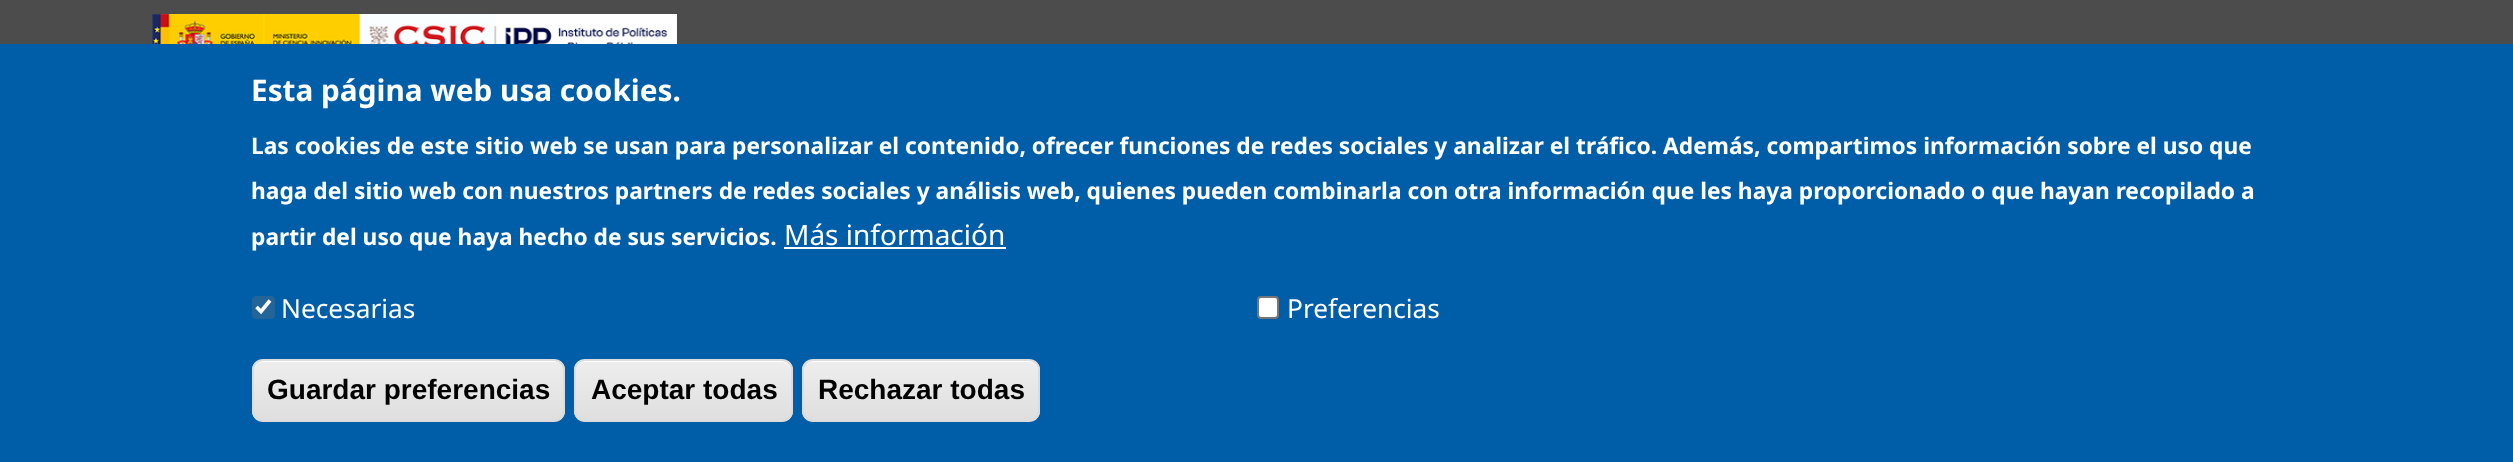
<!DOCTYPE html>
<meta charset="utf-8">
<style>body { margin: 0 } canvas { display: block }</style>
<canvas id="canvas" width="2513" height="462"></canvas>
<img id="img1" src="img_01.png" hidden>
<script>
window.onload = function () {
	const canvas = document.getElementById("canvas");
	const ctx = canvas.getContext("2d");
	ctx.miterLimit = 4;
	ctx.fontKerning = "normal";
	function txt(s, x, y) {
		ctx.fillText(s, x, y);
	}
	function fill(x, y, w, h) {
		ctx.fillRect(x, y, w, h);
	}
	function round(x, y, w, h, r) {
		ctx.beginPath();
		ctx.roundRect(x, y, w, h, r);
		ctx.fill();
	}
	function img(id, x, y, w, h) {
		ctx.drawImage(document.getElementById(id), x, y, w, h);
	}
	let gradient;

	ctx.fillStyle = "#FFFFFF";
	fill(0, 0, 2513, 462);
	ctx.fillStyle = "rgba(0, 0, 0, 0.7)";
	fill(0, 0, 2513, 44);
	img("img1", 152, 14, 525, 30);
	ctx.fillStyle = "#005DA8";
	fill(0, 44, 2513, 418);
	ctx.fillStyle = "#FFFFFF";
	fill(784, 247, 222, 2);
	ctx.fillStyle = "#236599";
	round(252, 296, 23, 23, 4);
	ctx.beginPath();
	ctx.moveTo(256.5, 307);
	ctx.lineTo(261, 311.5);
	ctx.lineTo(270, 300.5);
	ctx.strokeStyle = "#FFFFFF";
	ctx.lineWidth = 3.6;
	ctx.stroke();
	ctx.fillStyle = "#FFFFFF";
	ctx.beginPath();
	ctx.roundRect(1258, 297, 20, 21, 3);
	ctx.fill();
	ctx.strokeStyle = "#767676";
	ctx.lineWidth = 2;
	ctx.stroke();
	ctx.save();
	ctx.beginPath();
	ctx.roundRect(252, 359, 313, 63, 11);
	ctx.clip();
	gradient = ctx.createLinearGradient(409, 361, 409, 420);
	gradient.addColorStop(0.05, "#EDEDED");
	gradient.addColorStop(1, "#DFDFDF");
	ctx.fillStyle = gradient;
	fill(252, 361, 313, 59);
	ctx.restore();
	ctx.beginPath();
	ctx.moveTo(262, 362);
	ctx.lineTo(555, 362);
	ctx.bezierCurveTo(560, 362, 564, 366, 564, 371);
	ctx.lineTo(564, 370);
	ctx.bezierCurveTo(564, 365, 560, 361, 555, 361);
	ctx.lineTo(263, 361);
	ctx.bezierCurveTo(258, 361, 254, 365, 254, 370);
	ctx.lineTo(254, 371);
	ctx.bezierCurveTo(254, 366, 258, 362, 262, 362);
	ctx.closePath();
	ctx.fill();
	ctx.beginPath();
	ctx.roundRect(253, 360, 311, 61, 10);
	ctx.strokeStyle = "#DCDCDC";
	ctx.stroke();
	ctx.save();
	ctx.beginPath();
	ctx.roundRect(574, 359, 219, 63, 11);
	ctx.clip();
	gradient = ctx.createLinearGradient(683, 361, 683, 420);
	gradient.addColorStop(0.05, "#EDEDED");
	gradient.addColorStop(1, "#DFDFDF");
	ctx.fillStyle = gradient;
	fill(574, 361, 219, 59);
	ctx.restore();
	ctx.beginPath();
	ctx.moveTo(584, 362);
	ctx.lineTo(782, 362);
	ctx.bezierCurveTo(787, 362, 791, 366, 791, 371);
	ctx.lineTo(791, 370);
	ctx.bezierCurveTo(791, 365, 787, 361, 782, 361);
	ctx.lineTo(585, 361);
	ctx.bezierCurveTo(580, 361, 576, 365, 576, 370);
	ctx.lineTo(576, 371);
	ctx.bezierCurveTo(576, 366, 580, 362, 584, 362);
	ctx.closePath();
	ctx.fill();
	ctx.beginPath();
	ctx.roundRect(575, 360, 217, 61, 10);
	ctx.stroke();
	ctx.save();
	ctx.beginPath();
	ctx.roundRect(802, 359, 238, 63, 11);
	ctx.clip();
	gradient = ctx.createLinearGradient(921, 361, 921, 420);
	gradient.addColorStop(0.05, "#EDEDED");
	gradient.addColorStop(1, "#DFDFDF");
	ctx.fillStyle = gradient;
	fill(802, 361, 238, 59);
	ctx.restore();
	ctx.beginPath();
	ctx.moveTo(812, 362);
	ctx.lineTo(1029, 362);
	ctx.bezierCurveTo(1034, 362, 1038, 366, 1038, 371);
	ctx.lineTo(1038, 370);
	ctx.bezierCurveTo(1038, 365, 1034, 361, 1029, 361);
	ctx.lineTo(812, 361);
	ctx.bezierCurveTo(807, 361, 803, 365, 803, 370);
	ctx.lineTo(803, 371);
	ctx.bezierCurveTo(803, 366, 807, 362, 812, 362);
	ctx.closePath();
	ctx.fill();
	ctx.beginPath();
	ctx.roundRect(803, 360, 236, 61, 10);
	ctx.stroke();
	ctx.font = "bold 29.75px Noto Sans";
	txt("Esta página web usa cookies.", 251, 101);
	ctx.font = "bold 22.75px Noto Sans";
	txt("Las cookies de este sitio web se usan para personalizar el contenido, ofrecer funciones de redes sociales y analizar el tráfico. Además, compartimos información sobre el uso que", 251, 154);
	txt("haga del sitio web con nuestros partners de redes sociales y análisis web, quienes pueden combinarla con otra información que les haya proporcionado o que hayan recopilado a", 251, 199);
	txt("partir del uso que haya hecho de sus servicios.", 251, 245);
	ctx.font = "28px Noto Sans";
	txt("Más información", 784, 245);
	ctx.font = "26.25px Noto Sans";
	txt("Necesarias", 281, 318);
	txt("Preferencias", 1287, 318);
	ctx.font = "bold 28px Liberation Sans";
	ctx.fillStyle = "#000000";
	txt("Guardar preferencias", 267, 399);
	txt("Aceptar todas", 591, 399);
	txt("Rechazar todas", 818, 399);
};
</script>
